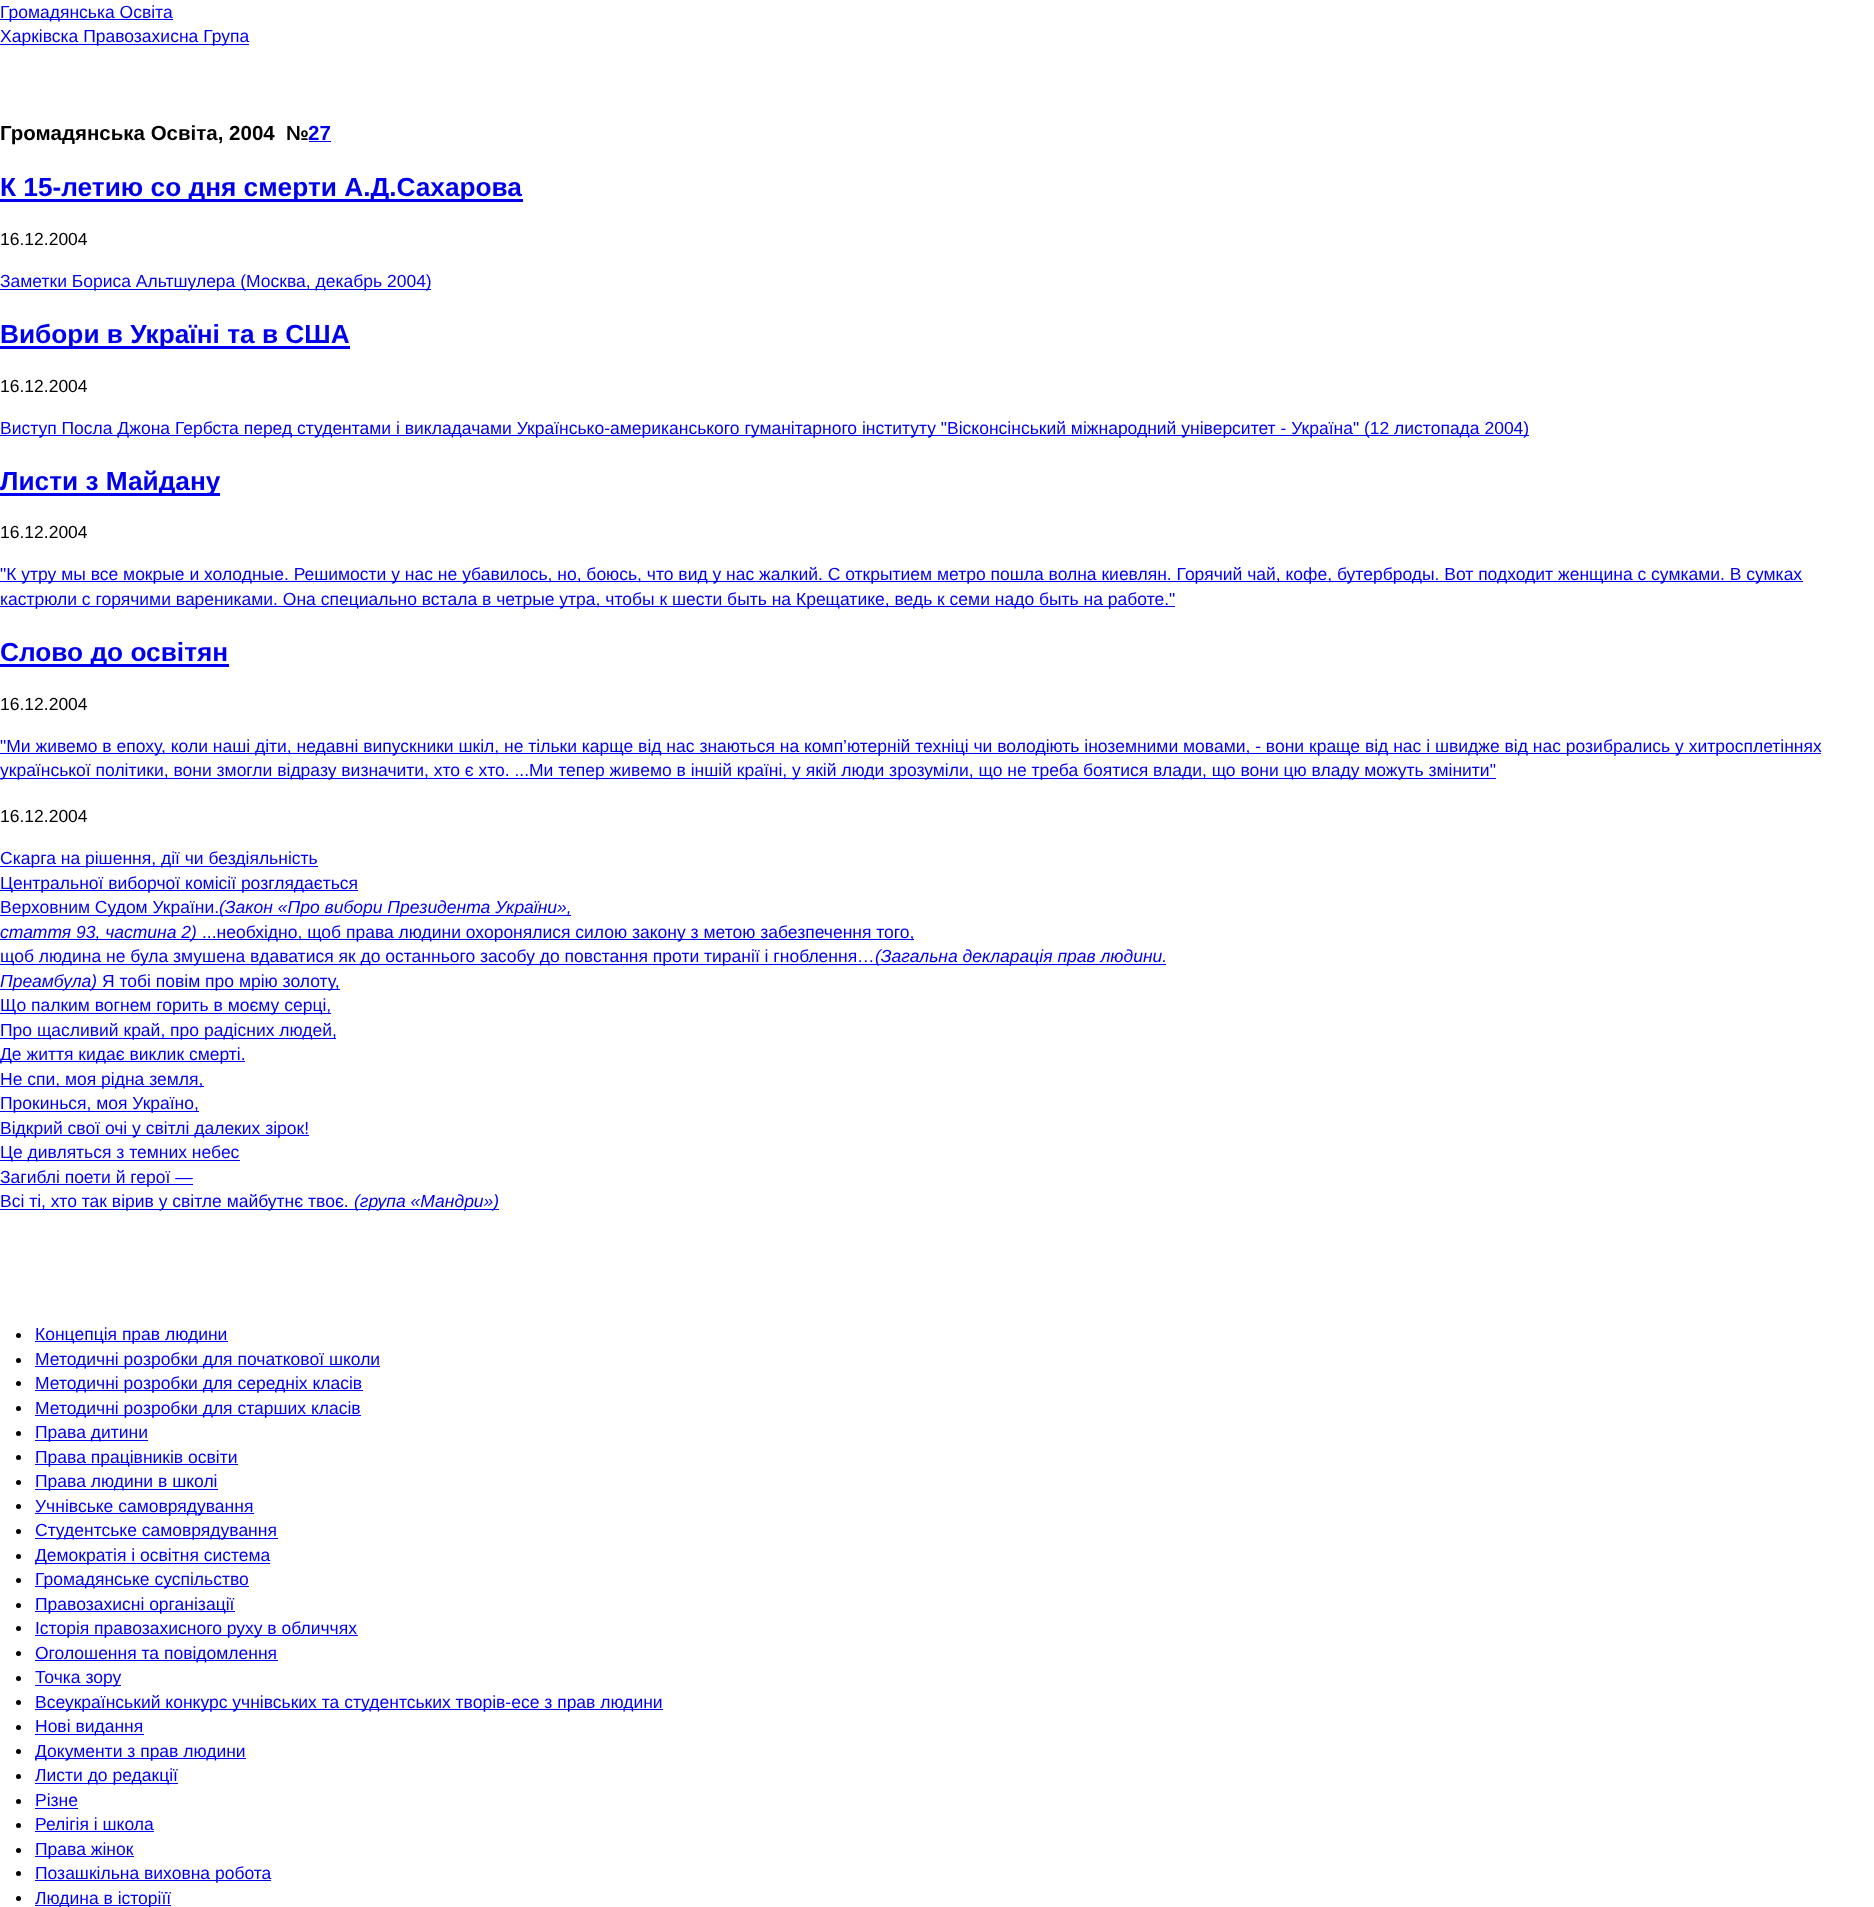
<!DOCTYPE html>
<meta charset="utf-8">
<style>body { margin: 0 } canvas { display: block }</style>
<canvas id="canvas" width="1874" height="1907"></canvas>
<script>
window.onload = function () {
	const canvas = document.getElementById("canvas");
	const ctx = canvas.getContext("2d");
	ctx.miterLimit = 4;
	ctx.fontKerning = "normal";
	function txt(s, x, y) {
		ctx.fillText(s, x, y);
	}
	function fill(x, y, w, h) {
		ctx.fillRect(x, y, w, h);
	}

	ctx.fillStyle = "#FFFFFF";
	fill(0, 0, 1874, 1907);
	ctx.fillStyle = "#0000EE";
	fill(0, 19, 173, 1);
	fill(0, 44, 249, 1);
	fill(309, 141, 22, 1);
	fill(0, 199, 523, 3);
	fill(0, 289, 431, 1);
	fill(0, 346, 350, 3);
	fill(0, 435, 1529, 1);
	fill(0, 493, 220, 3);
	fill(0, 581, 1803, 1);
	fill(0, 606, 1175, 1);
	fill(0, 664, 229, 3);
	fill(0, 753, 1821, 1);
	fill(0, 778, 1496, 1);
	fill(0, 866, 318, 1);
	fill(0, 890, 358, 1);
	fill(0, 915, 571, 1);
	fill(0, 939, 914, 1);
	fill(0, 964, 1166, 1);
	fill(0, 989, 340, 1);
	fill(0, 1013, 331, 1);
	fill(0, 1038, 336, 1);
	fill(0, 1061, 245, 1);
	fill(0, 1086, 204, 1);
	fill(0, 1111, 199, 1);
	fill(0, 1135, 309, 1);
	fill(0, 1160, 240, 1);
	fill(0, 1184, 193, 1);
	fill(0, 1209, 499, 1);
	ctx.fillStyle = "#000000";
	ctx.beginPath();
	ctx.arc(18.5, 1335.5, 2.5, 0, Math.PI * 2);
	ctx.fill();
	ctx.fillStyle = "#0000EE";
	fill(35, 1341, 193, 1);
	ctx.fillStyle = "#000000";
	ctx.beginPath();
	ctx.arc(18.5, 1360.5, 2.5, 0, Math.PI * 2);
	ctx.fill();
	ctx.fillStyle = "#0000EE";
	fill(35, 1366, 345, 1);
	ctx.fillStyle = "#000000";
	ctx.beginPath();
	ctx.arc(18.5, 1383.5, 2.5, 0, Math.PI * 2);
	ctx.fill();
	ctx.fillStyle = "#0000EE";
	fill(35, 1390, 328, 1);
	ctx.fillStyle = "#000000";
	ctx.beginPath();
	ctx.arc(18.5, 1408.5, 2.5, 0, Math.PI * 2);
	ctx.fill();
	ctx.fillStyle = "#0000EE";
	fill(35, 1415, 326, 1);
	ctx.fillStyle = "#000000";
	ctx.beginPath();
	ctx.arc(18.5, 1433.5, 2.5, 0, Math.PI * 2);
	ctx.fill();
	ctx.fillStyle = "#0000EE";
	fill(35, 1440, 113, 1);
	ctx.fillStyle = "#000000";
	ctx.beginPath();
	ctx.arc(18.5, 1457.5, 2.5, 0, Math.PI * 2);
	ctx.fill();
	ctx.fillStyle = "#0000EE";
	fill(35, 1464, 203, 1);
	ctx.fillStyle = "#000000";
	ctx.beginPath();
	ctx.arc(18.5, 1482.5, 2.5, 0, Math.PI * 2);
	ctx.fill();
	ctx.fillStyle = "#0000EE";
	fill(35, 1489, 183, 1);
	ctx.fillStyle = "#000000";
	ctx.beginPath();
	ctx.arc(18.5, 1506.5, 2.5, 0, Math.PI * 2);
	ctx.fill();
	ctx.fillStyle = "#0000EE";
	fill(35, 1513, 219, 1);
	ctx.fillStyle = "#000000";
	ctx.beginPath();
	ctx.arc(18.5, 1531.5, 2.5, 0, Math.PI * 2);
	ctx.fill();
	ctx.fillStyle = "#0000EE";
	fill(35, 1538, 243, 1);
	ctx.fillStyle = "#000000";
	ctx.beginPath();
	ctx.arc(18.5, 1556.5, 2.5, 0, Math.PI * 2);
	ctx.fill();
	ctx.fillStyle = "#0000EE";
	fill(35, 1563, 235, 1);
	ctx.fillStyle = "#000000";
	ctx.beginPath();
	ctx.arc(18.5, 1580.5, 2.5, 0, Math.PI * 2);
	ctx.fill();
	ctx.fillStyle = "#0000EE";
	fill(35, 1586, 214, 1);
	ctx.fillStyle = "#000000";
	ctx.beginPath();
	ctx.arc(18.5, 1605.5, 2.5, 0, Math.PI * 2);
	ctx.fill();
	ctx.fillStyle = "#0000EE";
	fill(35, 1611, 200, 1);
	ctx.fillStyle = "#000000";
	ctx.beginPath();
	ctx.arc(18.5, 1628.5, 2.5, 0, Math.PI * 2);
	ctx.fill();
	ctx.fillStyle = "#0000EE";
	fill(35, 1635, 323, 1);
	ctx.fillStyle = "#000000";
	ctx.beginPath();
	ctx.arc(18.5, 1653.5, 2.5, 0, Math.PI * 2);
	ctx.fill();
	ctx.fillStyle = "#0000EE";
	fill(35, 1660, 243, 1);
	ctx.fillStyle = "#000000";
	ctx.beginPath();
	ctx.arc(18.5, 1678.5, 2.5, 0, Math.PI * 2);
	ctx.fill();
	ctx.fillStyle = "#0000EE";
	fill(35, 1685, 86, 1);
	ctx.fillStyle = "#000000";
	ctx.beginPath();
	ctx.arc(18.5, 1702.5, 2.5, 0, Math.PI * 2);
	ctx.fill();
	ctx.fillStyle = "#0000EE";
	fill(35, 1709, 628, 1);
	ctx.fillStyle = "#000000";
	ctx.beginPath();
	ctx.arc(18.5, 1727.5, 2.5, 0, Math.PI * 2);
	ctx.fill();
	ctx.fillStyle = "#0000EE";
	fill(35, 1734, 109, 1);
	ctx.fillStyle = "#000000";
	ctx.beginPath();
	ctx.arc(18.5, 1751.5, 2.5, 0, Math.PI * 2);
	ctx.fill();
	ctx.fillStyle = "#0000EE";
	fill(35, 1758, 211, 1);
	ctx.fillStyle = "#000000";
	ctx.beginPath();
	ctx.arc(18.5, 1776.5, 2.5, 0, Math.PI * 2);
	ctx.fill();
	ctx.fillStyle = "#0000EE";
	fill(35, 1783, 143, 1);
	ctx.fillStyle = "#000000";
	ctx.beginPath();
	ctx.arc(18.5, 1801.5, 2.5, 0, Math.PI * 2);
	ctx.fill();
	ctx.fillStyle = "#0000EE";
	fill(35, 1808, 43, 1);
	ctx.fillStyle = "#000000";
	ctx.beginPath();
	ctx.arc(18.5, 1825.5, 2.5, 0, Math.PI * 2);
	ctx.fill();
	ctx.fillStyle = "#0000EE";
	fill(35, 1831, 119, 1);
	ctx.fillStyle = "#000000";
	ctx.beginPath();
	ctx.arc(18.5, 1850.5, 2.5, 0, Math.PI * 2);
	ctx.fill();
	ctx.fillStyle = "#0000EE";
	fill(35, 1856, 99, 1);
	ctx.fillStyle = "#000000";
	ctx.beginPath();
	ctx.arc(18.5, 1873.5, 2.5, 0, Math.PI * 2);
	ctx.fill();
	ctx.fillStyle = "#0000EE";
	fill(35, 1880, 236, 1);
	ctx.fillStyle = "#000000";
	ctx.beginPath();
	ctx.arc(18.5, 1898.5, 2.5, 0, Math.PI * 2);
	ctx.fill();
	ctx.fillStyle = "#0000EE";
	fill(35, 1905, 136, 1);
	ctx.font = "17.5px Liberation Sans";
	txt("Громадянська Освіта", 0, 18);
	txt("Харківска Правозахисна Група", 0, 42);
	ctx.font = "bold 20.5px Liberation Sans";
	ctx.fillStyle = "#000000";
	txt("Громадянська Освіта, 2004  №", 0, 140);
	ctx.fillStyle = "#0000EE";
	txt("27", 308, 140);
	ctx.font = "bold 26.25px Liberation Sans";
	txt("К 15-летию со дня смерти А.Д.Сахарова", 0, 196);
	ctx.font = "17.5px Liberation Sans";
	ctx.fillStyle = "#000000";
	txt("16.12.2004", 0, 245);
	ctx.fillStyle = "#0000EE";
	txt("Заметки Бориса Альтшулера (Москва, декабрь 2004)", 0, 287);
	ctx.font = "bold 26.25px Liberation Sans";
	txt("Вибори в Україні та в США", 0, 343);
	ctx.font = "17.5px Liberation Sans";
	ctx.fillStyle = "#000000";
	txt("16.12.2004", 0, 392);
	ctx.fillStyle = "#0000EE";
	txt("Виступ Посла Джона Гербста перед студентами і викладачами Українсько-американського гуманітарного інституту \"Вісконсінський міжнародний університет - Україна\" (12 листопада 2004)", 0, 434);
	ctx.font = "bold 26.25px Liberation Sans";
	txt("Листи з Майдану", 0, 490);
	ctx.font = "17.5px Liberation Sans";
	ctx.fillStyle = "#000000";
	txt("16.12.2004", 0, 538);
	ctx.fillStyle = "#0000EE";
	txt("\"К утру мы все мокрые и холодные. Решимости у нас не убавилось, но, боюсь, что вид у нас жалкий. С открытием метро пошла волна киевлян. Горячий чай, кофе, бутерброды. Вот подходит женщина с сумками. В сумках", 0, 580);
	txt("кастрюли с горячими варениками. Она специально встала в четрые утра, чтобы к шести быть на Крещатике, ведь к семи надо быть на работе.\"", 0, 605);
	ctx.font = "bold 26.25px Liberation Sans";
	txt("Слово до освітян", 0, 661);
	ctx.font = "17.5px Liberation Sans";
	ctx.fillStyle = "#000000";
	txt("16.12.2004", 0, 710);
	ctx.fillStyle = "#0000EE";
	txt("\"Ми живемо в епоху, коли наші діти, недавні випускники шкіл, не тільки карще від нас знаються на комп’ютерній техніці чи володіють іноземними мовами, - вони краще від нас і швидже від нас розибрались у хитросплетіннях", 0, 752);
	txt("української політики, вони змогли відразу визначити, хто є хто. ...Ми тепер живемо в іншій країні, у якій люди зрозуміли, що не треба боятися влади, що вони цю владу можуть змінити\"", 0, 776);
	ctx.fillStyle = "#000000";
	txt("16.12.2004", 0, 822);
	ctx.fillStyle = "#0000EE";
	txt("Скарга на рішення, дії чи бездіяльність", 0, 864);
	txt("Центральної виборчої комісії розглядається", 0, 889);
	txt("Верховним Судом України.", 0, 913);
	ctx.font = "italic 17.5px Liberation Sans";
	txt("(Закон «Про вибори Президента України»,", 219, 913);
	txt("стаття 93, частина 2)", 0, 938);
	ctx.font = "17.5px Liberation Sans";
	txt("...необхідно, щоб права людини охоронялися силою закону з метою забезпечення того,", 202, 938);
	txt("щоб людина не була змушена вдаватися як до останнього засобу до повстання проти тиранії і гноблення…", 0, 962);
	ctx.font = "italic 17.5px Liberation Sans";
	txt("(Загальна декларація прав людини.", 875, 962);
	txt("Преамбула)", 0, 987);
	ctx.font = "17.5px Liberation Sans";
	txt("Я тобі повім про мрію золоту,", 102, 987);
	txt("Що палким вогнем горить в моєму серці,", 0, 1011);
	txt("Про щасливий край, про радісних людей,", 0, 1036);
	txt("Де життя кидає виклик смерті.", 0, 1060);
	txt("Не спи, моя рідна земля,", 0, 1085);
	txt("Прокинься, моя Україно,", 0, 1109);
	txt("Відкрий свої очі у світлі далеких зірок!", 0, 1134);
	txt("Це дивляться з темних небес", 0, 1158);
	txt("Загиблі поети й герої —", 0, 1183);
	txt("Всі ті, хто так вірив у світле майбутнє твоє.", 0, 1207);
	ctx.font = "italic 17.5px Liberation Sans";
	txt("(група «Мандри»)", 354, 1207);
	ctx.font = "17.5px Liberation Sans";
	txt("Концепція прав людини", 35, 1340);
	txt("Методичні розробки для початкової школи", 35, 1365);
	txt("Методичні розробки для середніх класів", 35, 1389);
	txt("Методичні розробки для старших класів", 35, 1414);
	txt("Права дитини", 35, 1438);
	txt("Права працівників освіти", 35, 1463);
	txt("Права людини в школі", 35, 1487);
	txt("Учнівське самоврядування", 35, 1512);
	txt("Студентське самоврядування", 35, 1536);
	txt("Демократія і освітня система", 35, 1561);
	txt("Громадянське суспільство", 35, 1585);
	txt("Правозахисні організації", 35, 1610);
	txt("Історія правозахисного руху в обличчях", 35, 1634);
	txt("Оголошення та повідомлення", 35, 1659);
	txt("Точка зору", 35, 1683);
	txt("Всеукраїнський конкурс учнівських та студентських творів-есе з прав людини", 35, 1708);
	txt("Нові видання", 35, 1732);
	txt("Документи з прав людини", 35, 1757);
	txt("Листи до редакції", 35, 1781);
	txt("Різне", 35, 1806);
	txt("Релігія і школа", 35, 1830);
	txt("Права жінок", 35, 1855);
	txt("Позашкільна виховна робота", 35, 1879);
	txt("Людина в історіїї", 35, 1904);
};
</script>
